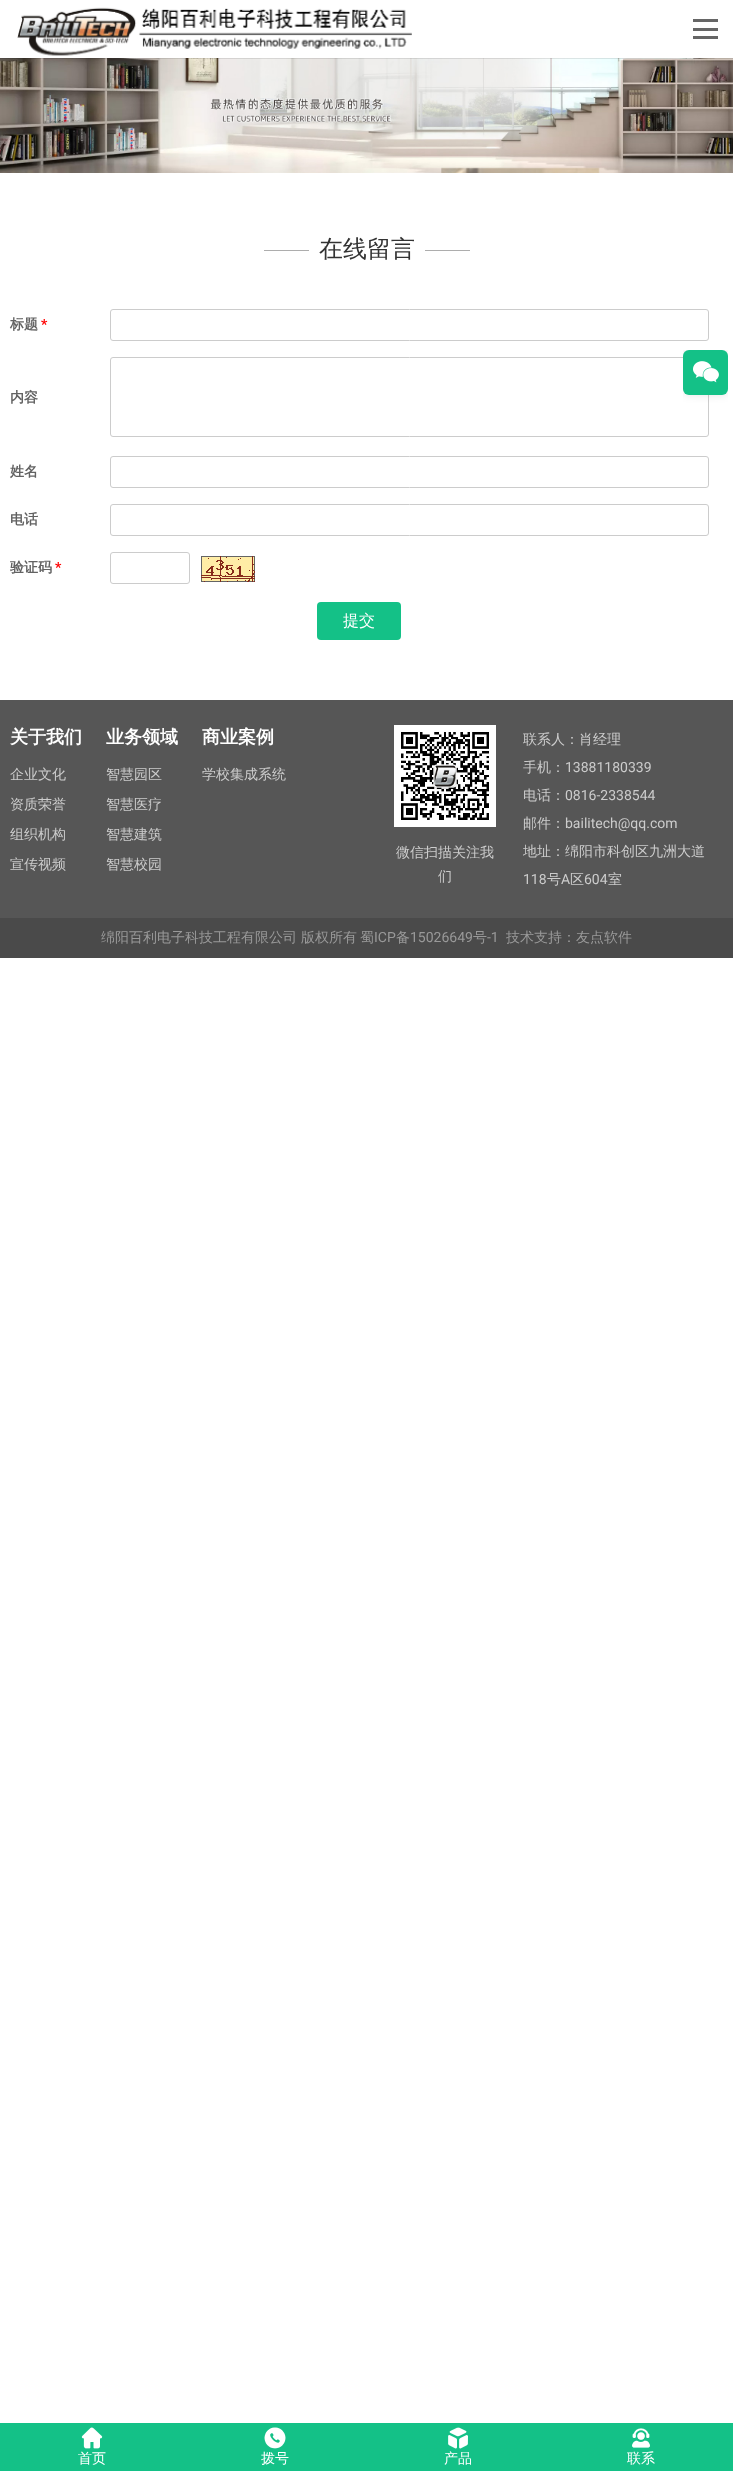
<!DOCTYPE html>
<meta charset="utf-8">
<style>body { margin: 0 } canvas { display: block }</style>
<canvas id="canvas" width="733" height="2471"></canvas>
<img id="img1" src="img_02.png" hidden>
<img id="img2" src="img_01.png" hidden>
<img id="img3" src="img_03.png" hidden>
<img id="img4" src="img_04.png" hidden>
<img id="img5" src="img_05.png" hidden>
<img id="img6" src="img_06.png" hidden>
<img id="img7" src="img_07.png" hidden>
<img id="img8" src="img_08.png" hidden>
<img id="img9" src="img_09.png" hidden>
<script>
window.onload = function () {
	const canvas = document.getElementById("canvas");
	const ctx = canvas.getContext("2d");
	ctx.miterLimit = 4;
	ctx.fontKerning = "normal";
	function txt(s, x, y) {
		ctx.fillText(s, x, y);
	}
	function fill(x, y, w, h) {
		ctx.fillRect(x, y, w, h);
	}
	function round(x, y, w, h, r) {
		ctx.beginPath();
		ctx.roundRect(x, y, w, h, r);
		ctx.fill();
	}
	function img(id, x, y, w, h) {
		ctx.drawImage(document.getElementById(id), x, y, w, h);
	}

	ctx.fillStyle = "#FFFFFF";
	fill(0, 0, 733, 2471);
	img("img1", 0, 58, 733, 115);
	ctx.save();
	ctx.beginPath();
	ctx.rect(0, 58, 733, 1);
	ctx.clip();
	ctx.fillStyle = "rgba(0, 0, 0, 0.1)";
	ctx.filter = "blur(0.5px)";
	ctx.beginPath();
	ctx.rect(0, 1, 733, 58);
	ctx.fill();
	ctx.filter = "none";
	ctx.restore();
	img("img2", 17, 7, 395, 49);
	ctx.fillStyle = "#666666";
	fill(693, 19, 25, 3);
	fill(693, 36, 25, 3);
	fill(693, 28, 25, 3);
	ctx.fillStyle = "#ADADAD";
	fill(264, 250, 45, 1);
	fill(425, 250, 45, 1);
	ctx.beginPath();
	ctx.roundRect(110.5, 309.5, 598, 31, 2.5);
	ctx.strokeStyle = "#CCCCCC";
	ctx.stroke();
	ctx.beginPath();
	ctx.roundRect(110.5, 357.5, 598, 79, 2.5);
	ctx.stroke();
	ctx.beginPath();
	ctx.roundRect(110.5, 456.5, 598, 31, 2.5);
	ctx.stroke();
	ctx.beginPath();
	ctx.roundRect(110.5, 504.5, 598, 31, 2.5);
	ctx.stroke();
	ctx.beginPath();
	ctx.roundRect(110.5, 552.5, 79, 31, 2.5);
	ctx.stroke();
	img("img3", 201, 556, 54, 26);
	ctx.fillStyle = "#14C187";
	round(317, 602, 84, 38, 4);
	ctx.save();
	ctx.beginPath();
	ctx.rect(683, 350, 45, 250);
	ctx.clip();
	ctx.fillStyle = "rgba(0, 0, 0, 0.1)";
	ctx.filter = "blur(4.5px)";
	ctx.beginPath();
	ctx.roundRect(683, 350, 45, 45, 6);
	ctx.fill();
	ctx.filter = "none";
	ctx.restore();
	round(683, 350, 45, 45, 6);
	img("img4", 693, 361, 26, 22);
	ctx.fillStyle = "#565656";
	fill(0, 700, 733, 218);
	img("img5", 394, 725, 102, 102);
	ctx.fillStyle = "#4A4A4A";
	fill(0, 918, 733, 40);
	ctx.fillStyle = "#14C187";
	fill(0, 2423, 733, 48);
	img("img6", 81, 2427, 22, 22);
	img("img7", 264, 2427, 22, 22);
	img("img8", 448, 2427, 20, 22);
	img("img9", 632, 2428, 18, 20);
	ctx.font = "500 24px WenQuanYi Zen Hei";
	ctx.fillStyle = "#333333";
	txt("在线留言", 319, 257);
	ctx.font = "bold 14px WenQuanYi Zen Hei";
	ctx.fillStyle = "#626262";
	txt("标题", 10, 329);
	ctx.font = "bold 14px Roboto";
	ctx.fillStyle = "#FF0000";
	txt("*", 41, 329);
	ctx.font = "bold 14px WenQuanYi Zen Hei";
	ctx.fillStyle = "#626262";
	txt("内容", 10, 402);
	txt("姓名", 10, 476);
	txt("电话", 10, 524);
	txt("验证码", 10, 572);
	ctx.font = "bold 14px Roboto";
	ctx.fillStyle = "#FF0000";
	txt("*", 55, 572);
	ctx.font = "500 16px WenQuanYi Zen Hei";
	ctx.fillStyle = "#FFFFFF";
	txt("提交", 343, 626);
	ctx.font = "bold 18px WenQuanYi Zen Hei";
	txt("关于我们", 10, 743);
	ctx.font = "500 14px WenQuanYi Zen Hei";
	ctx.fillStyle = "#CCCCCC";
	txt("企业文化", 10, 779);
	txt("资质荣誉", 10, 809);
	txt("组织机构", 10, 839);
	txt("宣传视频", 10, 869);
	ctx.font = "bold 18px WenQuanYi Zen Hei";
	ctx.fillStyle = "#FFFFFF";
	txt("业务领域", 106, 743);
	ctx.font = "500 14px WenQuanYi Zen Hei";
	ctx.fillStyle = "#CCCCCC";
	txt("智慧园区", 106, 779);
	txt("智慧医疗", 106, 809);
	txt("智慧建筑", 106, 839);
	txt("智慧校园", 106, 869);
	ctx.font = "bold 18px WenQuanYi Zen Hei";
	ctx.fillStyle = "#FFFFFF";
	txt("商业案例", 202, 743);
	ctx.font = "500 14px WenQuanYi Zen Hei";
	ctx.fillStyle = "#CCCCCC";
	txt("学校集成系统", 202, 779);
	txt("微信扫描关注我", 396, 857);
	txt("们", 438, 881);
	txt("联系人：肖经理", 523, 744);
	txt("手机：", 523, 772);
	ctx.font = "14px Roboto";
	txt("13881180339", 565, 772);
	ctx.font = "500 14px WenQuanYi Zen Hei";
	txt("电话：", 523, 800);
	ctx.font = "14px Roboto";
	txt("0816-2338544", 565, 800);
	ctx.font = "500 14px WenQuanYi Zen Hei";
	txt("邮件：", 523, 828);
	ctx.font = "14px Roboto";
	txt("bailitech@qq.com", 565, 828);
	ctx.font = "500 14px WenQuanYi Zen Hei";
	txt("地址：绵阳市科创区九洲大道", 523, 856);
	ctx.font = "14px Roboto";
	txt("118", 523, 884);
	ctx.font = "500 14px WenQuanYi Zen Hei";
	txt("号", 547, 884);
	ctx.font = "14px Roboto";
	txt("A", 561, 884);
	ctx.font = "500 14px WenQuanYi Zen Hei";
	txt("区", 570, 884);
	ctx.font = "14px Roboto";
	txt("604", 584, 884);
	ctx.font = "500 14px WenQuanYi Zen Hei";
	txt("室", 608, 884);
	ctx.fillStyle = "#999999";
	txt("绵阳百利电子科技工程有限公司", 101, 942);
	txt("版权所有", 301, 942);
	txt("蜀", 360, 942);
	ctx.font = "14px Roboto";
	txt("ICP", 374, 942);
	ctx.font = "500 14px WenQuanYi Zen Hei";
	txt("备", 396, 942);
	ctx.font = "14px Roboto";
	txt("15026649", 410, 942);
	ctx.font = "500 14px WenQuanYi Zen Hei";
	txt("号", 473, 942);
	ctx.font = "14px Roboto";
	txt("-1", 487, 942);
	ctx.font = "500 14px WenQuanYi Zen Hei";
	txt("技术支持：友点软件", 506, 942);
	ctx.fillStyle = "#FFFFFF";
	txt("首页", 78, 2463);
	txt("拨号", 261, 2463);
	txt("产品", 444, 2463);
	txt("联系", 627, 2463);
};
</script>
